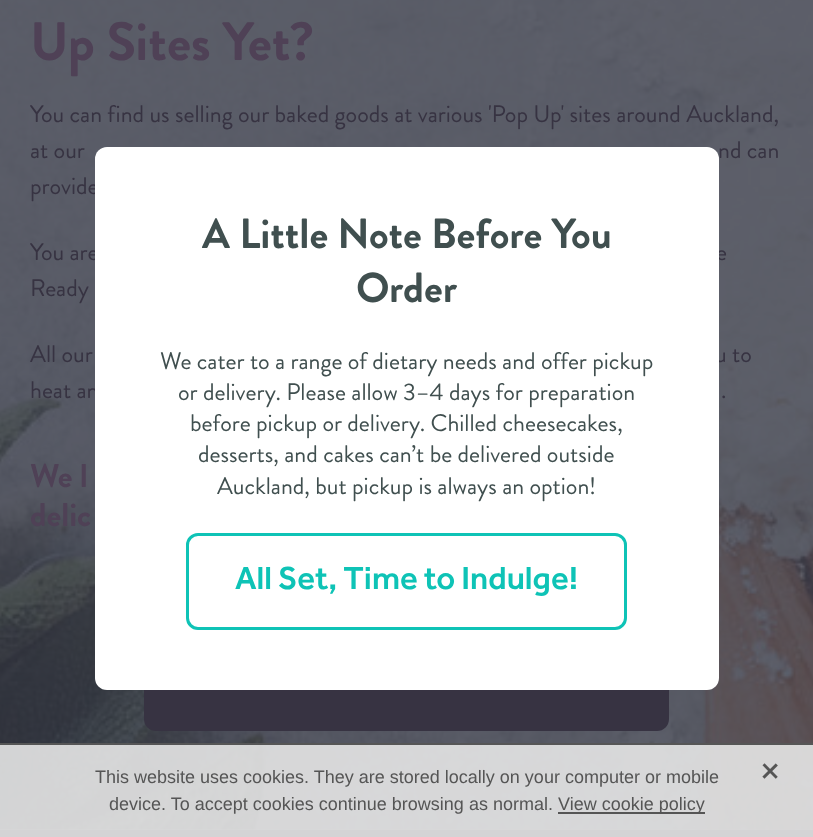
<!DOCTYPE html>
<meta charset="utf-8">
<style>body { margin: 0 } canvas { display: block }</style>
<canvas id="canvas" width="813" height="837"></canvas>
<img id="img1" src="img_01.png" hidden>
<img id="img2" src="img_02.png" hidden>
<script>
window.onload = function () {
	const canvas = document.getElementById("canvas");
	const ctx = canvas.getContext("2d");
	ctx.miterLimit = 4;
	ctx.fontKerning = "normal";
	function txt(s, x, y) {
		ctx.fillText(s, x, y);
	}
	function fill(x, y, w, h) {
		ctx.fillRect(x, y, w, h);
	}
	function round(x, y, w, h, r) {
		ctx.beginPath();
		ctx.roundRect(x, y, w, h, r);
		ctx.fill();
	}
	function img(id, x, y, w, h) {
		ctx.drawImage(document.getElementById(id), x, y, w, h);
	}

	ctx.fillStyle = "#5D5F6A";
	fill(0, 0, 813, 837);
	img("img1", 0, 0, 813, 830);
	ctx.fillStyle = "#373342";
	round(144, 584, 525, 147, 12);
	fill(0, 830, 813, 7);
	ctx.fillStyle = "rgba(229, 229, 229, 0.9)";
	fill(0, 743, 813, 94);
	ctx.fillStyle = "rgba(0, 0, 0, 0.6)";
	fill(0, 743, 813, 2);
	ctx.fillStyle = "#555555";
	fill(558, 812, 147, 2);
	img("img2", 762, 763, 16, 16);
	ctx.font = "bold 54px Brandon Grotesque";
	ctx.fillStyle = "#4F4156";
	txt("Up Sites Yet?", 30, 60);
	ctx.font = "24px Brandon Grotesque";
	ctx.fillStyle = "#373342";
	txt("You can find us selling our baked goods at various 'Pop Up' sites around Auckland,", 30, 122);
	txt("at our", 30, 158);
	txt("nd can", 718, 158);
	txt("provide", 30, 194);
	txt("You are", 30, 260);
	txt("e", 716, 260);
	txt("Ready", 30, 296);
	txt("All our", 30, 362);
	txt("u to", 715, 362);
	txt("heat an", 30, 398);
	txt(".", 721, 398);
	ctx.font = "bold 33px Brandon Grotesque";
	ctx.fillStyle = "#4F4156";
	txt("We l", 30, 487);
	txt("delic", 30, 526);
	ctx.fillStyle = "#FFFFFF";
	round(95, 147, 624, 543, 12);
	ctx.font = "bold 42px Brandon Grotesque";
	ctx.fillStyle = "#404F4F";
	txt("A Little Note Before You", 202, 248);
	txt("Order", 356, 302);
	ctx.font = "24px Brandon Grotesque";
	txt("We cater to a range of dietary needs and offer pickup", 160, 369);
	txt("or delivery. Please allow 3–4 days for preparation", 178, 400);
	txt("before pickup or delivery. Chilled cheesecakes,", 190, 431);
	txt("desserts, and cakes can’t be delivered outside", 198, 462);
	txt("Auckland, but pickup is always an option!", 217, 494);
	ctx.beginPath();
	ctx.roundRect(187.5, 534.5, 438, 94, 10.5);
	ctx.strokeStyle = "#0EC3B6";
	ctx.lineWidth = 3;
	ctx.stroke();
	ctx.font = "500 33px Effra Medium";
	ctx.fillStyle = "#0EC3B6";
	txt("All Set, Time to Indulge!", 235, 589);
	ctx.font = "18px Liberation Sans";
	ctx.fillStyle = "#555555";
	txt("This website uses cookies. They are stored locally on your computer or mobile", 95, 783);
	txt("device. To accept cookies continue browsing as normal.", 109, 810);
	txt("View cookie policy", 558, 810);
};
</script>
